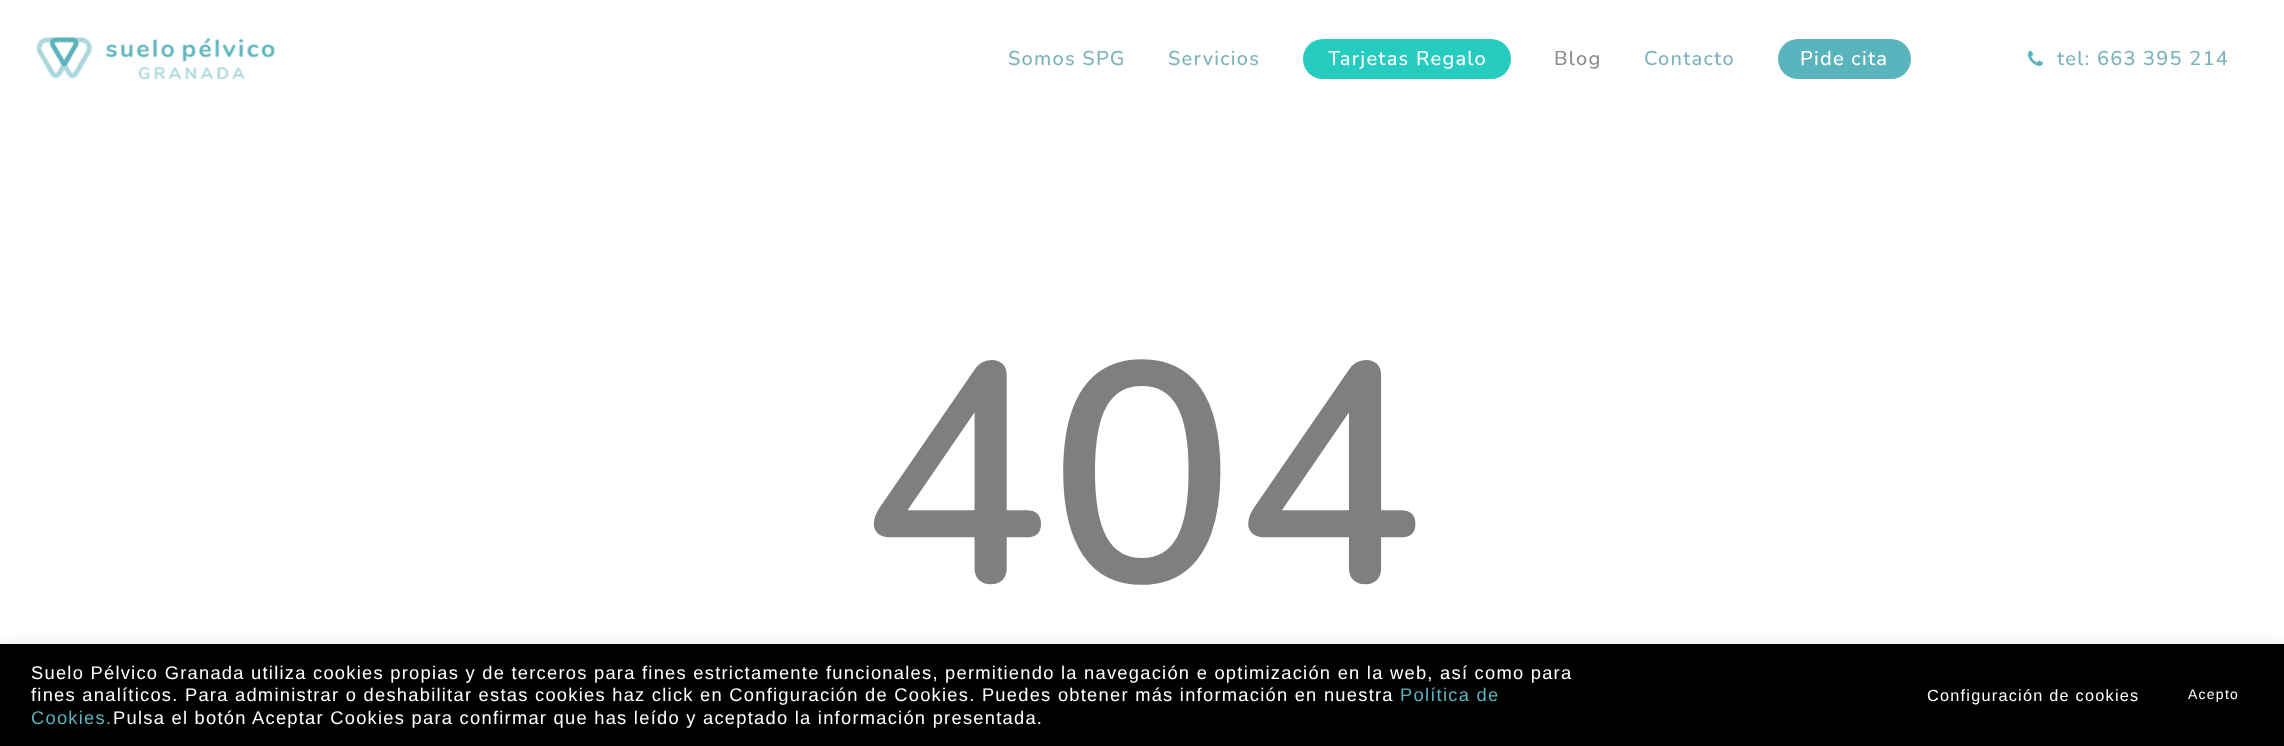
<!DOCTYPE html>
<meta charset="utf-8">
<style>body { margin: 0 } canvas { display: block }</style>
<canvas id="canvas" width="2284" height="746"></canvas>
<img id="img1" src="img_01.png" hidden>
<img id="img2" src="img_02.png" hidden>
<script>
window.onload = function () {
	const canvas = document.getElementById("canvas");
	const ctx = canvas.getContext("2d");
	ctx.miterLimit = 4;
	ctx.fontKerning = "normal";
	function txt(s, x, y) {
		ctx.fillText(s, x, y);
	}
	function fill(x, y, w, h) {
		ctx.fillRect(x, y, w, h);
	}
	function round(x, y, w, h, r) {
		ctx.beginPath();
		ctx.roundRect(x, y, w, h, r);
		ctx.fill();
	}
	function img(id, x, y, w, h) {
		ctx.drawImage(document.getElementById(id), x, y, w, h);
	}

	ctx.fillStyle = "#FFFFFF";
	fill(0, 0, 2284, 746);
	img("img1", 36, 37, 239, 43);
	ctx.fillStyle = "#27CCC0";
	round(1303, 39, 208, 40, 20);
	ctx.fillStyle = "#5AB4BD";
	round(1778, 39, 133, 40, 20);
	img("img2", 2027, 50, 16, 16);
	ctx.fillStyle = "rgba(172, 171, 171, 0.3)";
	ctx.filter = "blur(6px)";
	ctx.beginPath();
	ctx.rect(0, 643, 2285, 102);
	ctx.fill();
	ctx.filter = "none";
	ctx.fillStyle = "#000000";
	fill(0, 644, 2284, 102);
	ctx.letterSpacing = "1.25px";
	ctx.font = "500 20px Nunito";
	ctx.fillStyle = "#7BB2BC";
	txt("Somos SPG", 1008, 65);
	txt("Servicios", 1168, 65);
	ctx.fillStyle = "#FFFFFF";
	txt("Tarjetas Regalo", 1328, 65);
	ctx.fillStyle = "#8E8E8E";
	txt("Blog", 1554, 65);
	ctx.fillStyle = "#7BB2BC";
	txt("Contacto", 1644, 65);
	ctx.fillStyle = "#FFFFFF";
	txt("Pide cita", 1800, 65);
	ctx.fillStyle = "#7BB2BC";
	txt("tel: 663 395 214", 2057, 65);
	ctx.letterSpacing = "0px";
	ctx.font = "600 312px Nunito";
	ctx.fillStyle = "#7F7F7F";
	txt("404", 861, 582);
	ctx.letterSpacing = "1.25px";
	ctx.font = "18.33px Liberation Sans";
	ctx.fillStyle = "#FFFFFF";
	txt("Suelo Pélvico Granada utiliza cookies propias y de terceros para fines estrictamente funcionales, permitiendo la navegación e optimización en la web, así como para", 31, 679);
	txt("fines analíticos. Para administrar o deshabilitar estas cookies haz click en Configuración de Cookies. Puedes obtener más información en nuestra", 31, 701);
	ctx.fillStyle = "#5AB4BD";
	txt("Política de", 1400, 701);
	txt("Cookies.", 31, 724);
	ctx.fillStyle = "#FFFFFF";
	txt("Pulsa el botón Aceptar Cookies para confirmar que has leído y aceptado la información presentada.", 113, 724);
	ctx.font = "16.25px Liberation Sans";
	txt("Configuración de cookies", 1927, 701);
	ctx.font = "14px Liberation Sans";
	txt("Acepto", 2188, 699);
};
</script>
